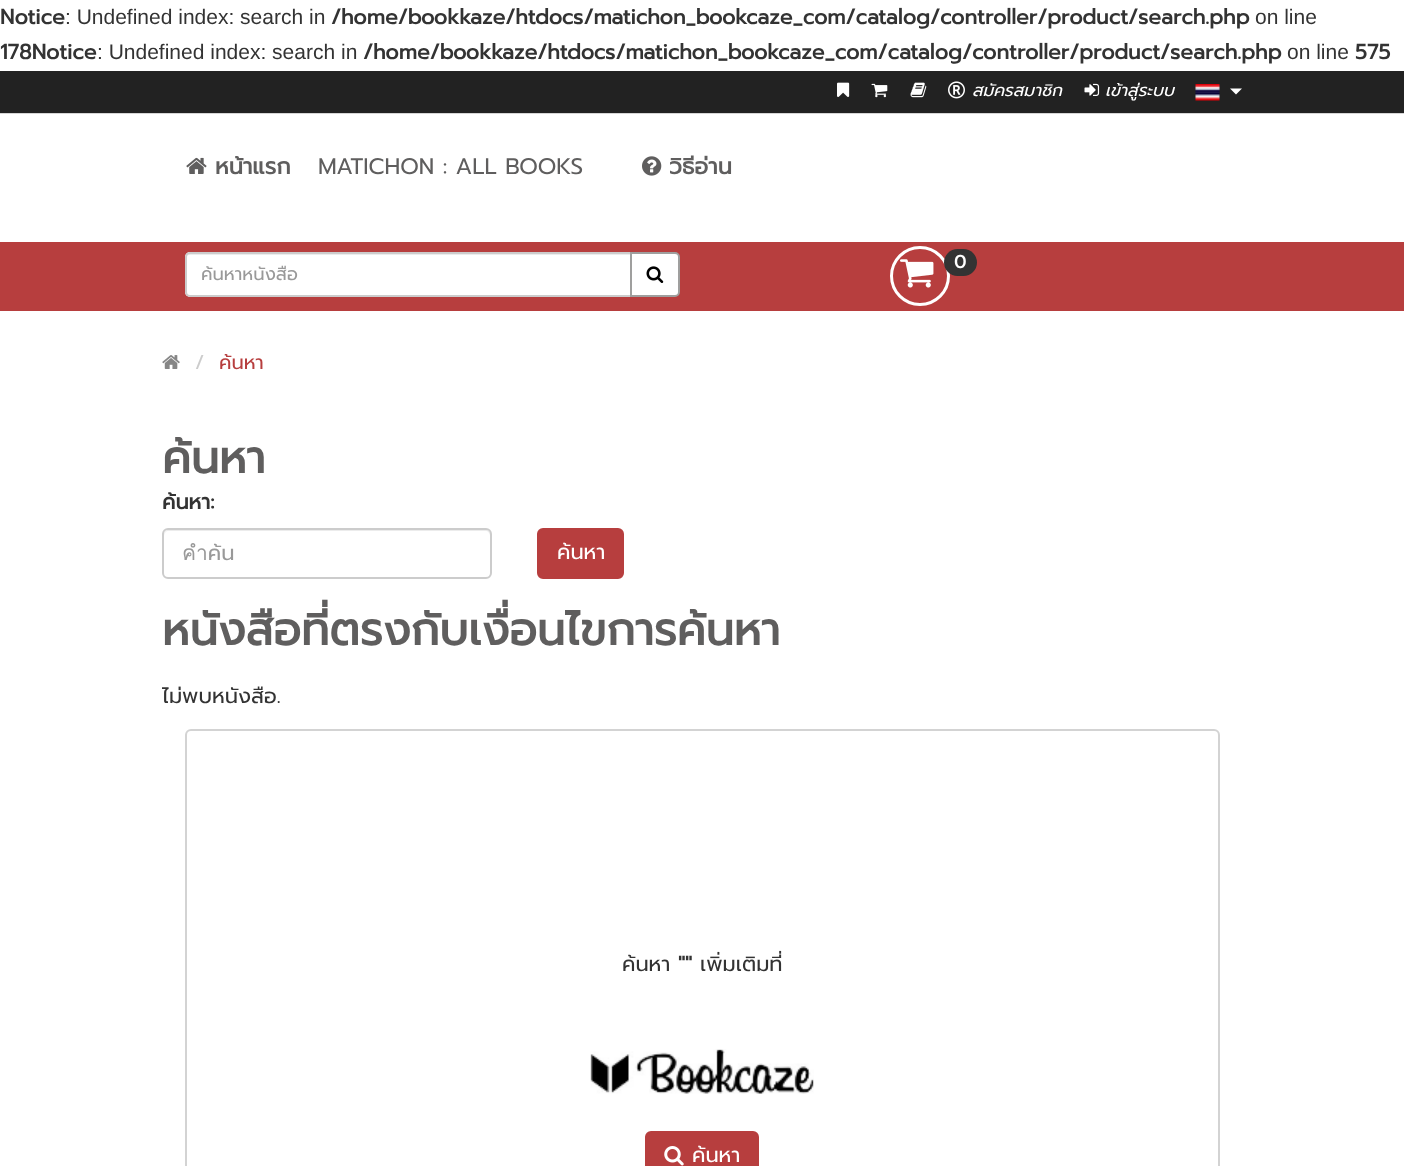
<!DOCTYPE html>
<meta charset="utf-8">
<style>body { margin: 0 } canvas { display: block }</style>
<canvas id="canvas" width="1404" height="1166"></canvas>
<img id="img1" src="img_01.png" hidden>
<img id="img2" src="img_02.png" hidden>
<img id="img3" src="img_03.png" hidden>
<img id="img4" src="img_04.png" hidden>
<img id="img5" src="img_05.png" hidden>
<img id="img6" src="img_06.png" hidden>
<img id="img7" src="img_07.png" hidden>
<img id="img8" src="img_08.png" hidden>
<img id="img9" src="img_09.png" hidden>
<img id="img10" src="img_10.png" hidden>
<img id="img11" src="img_11.png" hidden>
<img id="img12" src="img_12.png" hidden>
<img id="img13" src="img_13.png" hidden>
<script>
window.onload = function () {
	const canvas = document.getElementById("canvas");
	const ctx = canvas.getContext("2d");
	ctx.miterLimit = 4;
	ctx.fontKerning = "normal";
	function txt(s, x, y) {
		ctx.fillText(s, x, y);
	}
	function fill(x, y, w, h) {
		ctx.fillRect(x, y, w, h);
	}
	function round(x, y, w, h, r) {
		ctx.beginPath();
		ctx.roundRect(x, y, w, h, r);
		ctx.fill();
	}
	function img(id, x, y, w, h) {
		ctx.drawImage(document.getElementById(id), x, y, w, h);
	}

	ctx.fillStyle = "#FFFFFF";
	fill(0, 0, 1404, 1166);
	ctx.fillStyle = "#222222";
	fill(0, 71, 1404, 42);
	ctx.fillStyle = "#D6D6D6";
	fill(0, 113, 1404, 1);
	img("img1", 837, 82, 13, 15);
	img("img2", 871, 83, 17, 15);
	img("img3", 910, 82, 17, 16);
	img("img4", 948, 81, 17, 18);
	img("img5", 1084, 83, 16, 13);
	img("img6", 1195, 84, 25, 17);
	ctx.fillStyle = "#FFFFFF";
	ctx.beginPath();
	ctx.moveTo(1230, 88.5);
	ctx.lineTo(1242, 88.5);
	ctx.lineTo(1236, 94.5);
	ctx.closePath();
	ctx.fill();
	img("img7", 186, 157, 21, 17);
	img("img8", 642, 156, 20, 20);
	ctx.fillStyle = "#B73E3E";
	fill(0, 242, 1404, 69);
	ctx.beginPath();
	ctx.arc(920, 276, 28.5, 0, Math.PI * 2);
	ctx.strokeStyle = "#FFFFFF";
	ctx.lineWidth = 3;
	ctx.stroke();
	img("img9", 900, 259, 34, 29);
	ctx.fillStyle = "#333333";
	round(944, 249, 33, 27, 13.5);
	ctx.fillStyle = "#FFFFFF";
	ctx.beginPath();
	ctx.roundRect(185, 252, 447, 45, [5, 0, 0, 5]);
	ctx.fill();
	ctx.fillStyle = "#ECECEC";
	ctx.beginPath();
	ctx.moveTo(189, 255);
	ctx.lineTo(630, 255);
	ctx.lineTo(630, 254);
	ctx.lineTo(189, 254);
	ctx.bezierCurveTo(187, 254, 186, 256, 186, 258);
	ctx.bezierCurveTo(186, 256, 187, 255, 189, 255);
	ctx.closePath();
	ctx.fill();
	ctx.beginPath();
	ctx.roundRect(186, 253, 445, 43, [4, 0, 0, 4]);
	ctx.strokeStyle = "#CCCCCC";
	ctx.lineWidth = 2;
	ctx.stroke();
	ctx.fillStyle = "#FFFFFF";
	ctx.beginPath();
	ctx.roundRect(631, 253, 48, 43, [0, 4, 4, 0]);
	ctx.fill();
	ctx.strokeStyle = "#9F9F9E";
	ctx.stroke();
	img("img10", 646, 266, 18, 17);
	img("img11", 162, 355, 18, 14);
	ctx.fillStyle = "#ECECEC";
	ctx.beginPath();
	ctx.moveTo(168, 531);
	ctx.lineTo(486, 531);
	ctx.bezierCurveTo(488, 531, 490, 533, 490, 536);
	ctx.lineTo(490, 574);
	ctx.lineTo(489, 577);
	ctx.bezierCurveTo(490, 576, 491, 574, 491, 573);
	ctx.lineTo(491, 535);
	ctx.bezierCurveTo(491, 532, 489, 530, 486, 530);
	ctx.lineTo(169, 530);
	ctx.bezierCurveTo(166, 530, 164, 532, 164, 535);
	ctx.lineTo(164, 536);
	ctx.bezierCurveTo(164, 533, 166, 531, 168, 531);
	ctx.closePath();
	ctx.fill();
	ctx.beginPath();
	ctx.roundRect(163, 529, 328, 49, 5);
	ctx.strokeStyle = "#CCCCCC";
	ctx.stroke();
	ctx.fillStyle = "#B73E3E";
	ctx.beginPath();
	ctx.roundRect(538, 529, 85, 49, 5);
	ctx.fill();
	ctx.strokeStyle = "#B73E3E";
	ctx.stroke();
	ctx.beginPath();
	ctx.roundRect(186, 730, 1033, 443, 5);
	ctx.strokeStyle = "#D3D3D3";
	ctx.stroke();
	img("img12", 590, 1049, 224, 45);
	ctx.beginPath();
	ctx.roundRect(646, 1132, 112, 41, 5);
	ctx.fill();
	ctx.strokeStyle = "#B73E3E";
	ctx.stroke();
	img("img13", 664, 1146, 20, 20);
	ctx.font = "bold 21px Prompt";
	ctx.fillStyle = "#333333";
	txt("Notice", 0, 24);
	ctx.font = "21px Liberation Sans";
	txt(": Undefined index: search in", 65, 24);
	ctx.font = "bold 21px Prompt";
	txt("/home/bookkaze/htdocs/matichon_bookcaze_com/catalog/controller/product/search.php", 331, 24);
	ctx.font = "21px Liberation Sans";
	txt("on line", 1255, 24);
	ctx.font = "bold 21px Prompt";
	txt("178Notice", 0, 59);
	ctx.font = "21px Liberation Sans";
	txt(": Undefined index: search in", 97, 59);
	ctx.font = "bold 21px Prompt";
	txt("/home/bookkaze/htdocs/matichon_bookcaze_com/catalog/controller/product/search.php", 363, 59);
	ctx.font = "21px Liberation Sans";
	txt("on line", 1287, 59);
	ctx.font = "bold 21px Prompt";
	txt("575", 1355, 59);
	ctx.font = "italic 17px Prompt";
	ctx.fillStyle = "#FFFFFF";
	txt("สมัครสมาชิก", 972, 96);
	txt("เข้าสู่ระบบ", 1105, 96);
	ctx.font = "bold 22.5px Prompt";
	ctx.fillStyle = "#5F5E5E";
	txt("หน้าแรก", 215, 174);
	ctx.font = "22.5px Prompt";
	txt("MATICHON : ALL BOOKS", 318, 174);
	ctx.font = "bold 22.5px Prompt";
	txt("วิธีอ่าน", 669, 174);
	ctx.font = "bold 18px Prompt";
	ctx.fillStyle = "#FFFFFF";
	txt("0", 954, 268);
	ctx.save();
	ctx.beginPath();
	ctx.rect(201, 261, 414, 27);
	ctx.clip();
	ctx.font = "18px Prompt";
	ctx.fillStyle = "#999999";
	txt("ค้นหาหนังสือ", 201, 280);
	ctx.restore();
	ctx.font = "19.5px Prompt";
	ctx.fillStyle = "#CCCCCC";
	txt("/", 195, 369);
	ctx.fillStyle = "#B73E3E";
	txt("ค้นหา", 219, 369);
	ctx.font = "bold 45px Prompt";
	ctx.fillStyle = "#5F5E5E";
	txt("ค้นหา", 162, 473);
	ctx.font = "bold 21px Prompt";
	ctx.fillStyle = "#333333";
	txt("ค้นหา:", 162, 509);
	ctx.save();
	ctx.beginPath();
	ctx.rect(182, 537, 291, 32);
	ctx.clip();
	ctx.font = "21px Prompt";
	ctx.fillStyle = "#999999";
	txt("คำค้น", 182, 560);
	ctx.restore();
	ctx.font = "21px Prompt";
	ctx.fillStyle = "#FFFFFF";
	txt("ค้นหา", 557, 559);
	ctx.font = "bold 45px Prompt";
	ctx.fillStyle = "#5F5E5E";
	txt("หนังสือที่ตรงกับเงื่อนไขการค้นหา", 162, 645);
	ctx.font = "21px Prompt";
	ctx.fillStyle = "#333333";
	txt("ไม่พบหนังสือ.", 162, 703);
	txt("ค้นหา", 622, 971);
	ctx.font = "bold 21px Prompt";
	txt("\"\"", 678, 971);
	ctx.font = "21px Prompt";
	txt("เพิ่มเติมที่", 700, 971);
	ctx.fillStyle = "#FFFFFF";
	txt("ค้นหา", 692, 1162);
};
</script>
